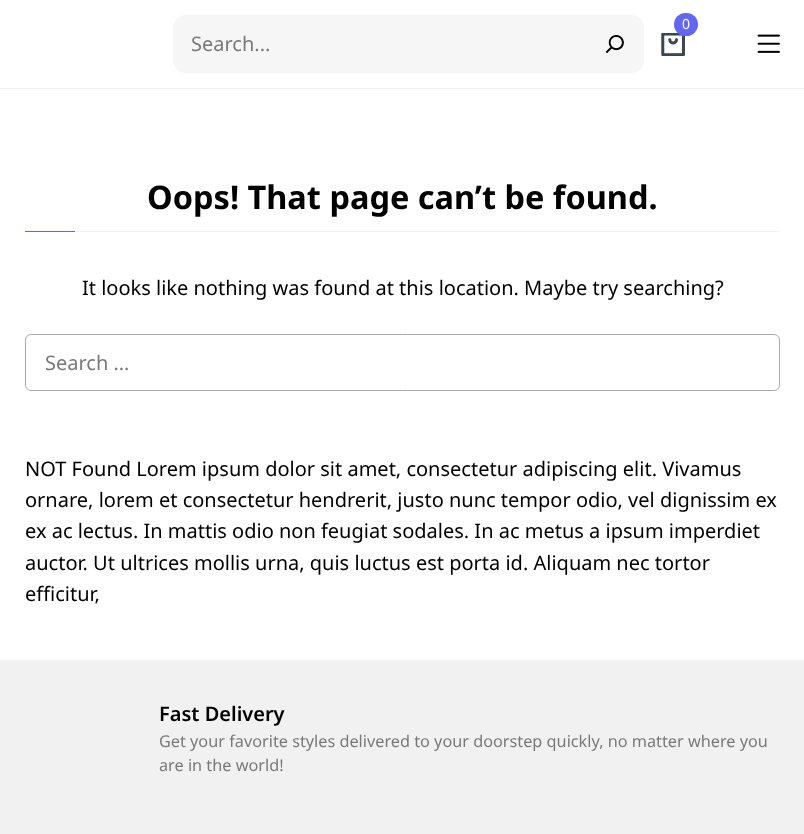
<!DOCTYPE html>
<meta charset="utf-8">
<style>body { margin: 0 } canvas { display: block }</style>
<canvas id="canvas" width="804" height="834"></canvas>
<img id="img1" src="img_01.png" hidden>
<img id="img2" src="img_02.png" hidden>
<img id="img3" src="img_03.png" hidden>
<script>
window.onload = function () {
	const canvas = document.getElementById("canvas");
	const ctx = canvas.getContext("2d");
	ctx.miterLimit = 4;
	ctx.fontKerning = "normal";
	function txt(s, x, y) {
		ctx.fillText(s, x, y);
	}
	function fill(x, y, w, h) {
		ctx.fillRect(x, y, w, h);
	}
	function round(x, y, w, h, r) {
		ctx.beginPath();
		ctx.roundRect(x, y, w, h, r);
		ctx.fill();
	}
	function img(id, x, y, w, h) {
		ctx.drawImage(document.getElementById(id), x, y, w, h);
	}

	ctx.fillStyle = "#FFFFFF";
	fill(0, 0, 804, 834);
	ctx.fillStyle = "#F1F1F1";
	fill(0, 88, 804, 1);
	img("img1", 661, 33, 24, 23);
	ctx.fillStyle = "#6366F1";
	round(674, 13, 24, 23, 11.5);
	ctx.fillStyle = "#F6F6F6";
	round(173, 15, 471, 58, 13);
	img("img2", 605, 35, 19, 19);
	img("img3", 757, 34, 23, 19);
	ctx.fillStyle = "#F1F1F1";
	fill(75, 231, 705, 1);
	ctx.fillStyle = "#6366F1";
	fill(25, 231, 50, 1);
	ctx.beginPath();
	ctx.roundRect(25.5, 334.5, 754, 56, 5.5);
	ctx.strokeStyle = "#AAAAAA";
	ctx.stroke();
	ctx.fillStyle = "#F1F1F1";
	fill(0, 660, 804, 174);
	ctx.font = "14px Noto Sans";
	ctx.fillStyle = "#FFFFFF";
	txt("0", 682, 29);
	ctx.font = "20px Noto Sans";
	ctx.fillStyle = "#797979";
	txt("Search...", 191, 51);
	ctx.font = "bold 32.5px Noto Sans";
	ctx.fillStyle = "#000000";
	txt("Oops! That page can’t be found.", 147, 209);
	ctx.font = "20px Noto Sans";
	txt("It looks like nothing was found at this location. Maybe try searching?", 82, 295);
	ctx.fillStyle = "#797979";
	txt("Search …", 45, 370);
	ctx.fillStyle = "#000000";
	txt("NOT Found Lorem ipsum dolor sit amet, consectetur adipiscing elit. Vivamus", 25, 476);
	txt("ornare, lorem et consectetur hendrerit, justo nunc tempor odio, vel dignissim ex", 25, 507);
	txt("ex ac lectus. In mattis odio non feugiat sodales. In ac metus a ipsum imperdiet", 25, 538);
	txt("auctor. Ut ultrices mollis urna, quis luctus est porta id. Aliquam nec tortor", 25, 570);
	txt("efficitur,", 25, 601);
	ctx.font = "600 20px Noto Sans";
	txt("Fast Delivery", 159, 721);
	ctx.font = "16.25px Noto Sans";
	ctx.fillStyle = "#797979";
	txt("Get your favorite styles delivered to your doorstep quickly, no matter where you", 159, 747);
	txt("are in the world!", 159, 771);
};
</script>
